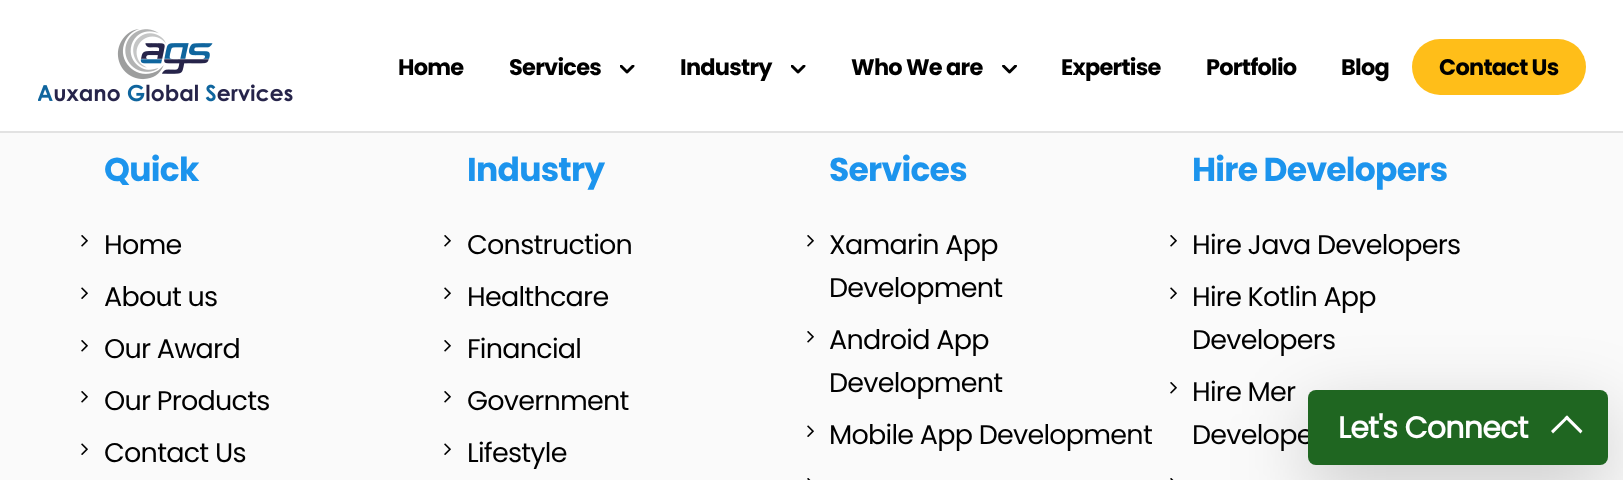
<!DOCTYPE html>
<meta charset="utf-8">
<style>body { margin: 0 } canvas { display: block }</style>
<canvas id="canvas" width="1623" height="480"></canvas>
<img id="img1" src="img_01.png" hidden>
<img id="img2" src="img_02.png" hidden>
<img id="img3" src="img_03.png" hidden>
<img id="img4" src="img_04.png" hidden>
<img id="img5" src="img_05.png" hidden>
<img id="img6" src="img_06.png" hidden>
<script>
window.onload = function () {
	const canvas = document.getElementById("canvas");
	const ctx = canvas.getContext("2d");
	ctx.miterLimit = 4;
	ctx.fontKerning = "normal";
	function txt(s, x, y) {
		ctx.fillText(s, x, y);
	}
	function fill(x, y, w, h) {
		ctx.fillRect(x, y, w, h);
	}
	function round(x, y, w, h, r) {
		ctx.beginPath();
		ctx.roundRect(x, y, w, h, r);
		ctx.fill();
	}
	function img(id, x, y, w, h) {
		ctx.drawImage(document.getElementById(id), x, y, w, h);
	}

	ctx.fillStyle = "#FAFAFA";
	fill(0, 0, 1623, 480);
	ctx.fillStyle = "#FFFFFF";
	fill(0, 0, 1623, 131);
	ctx.fillStyle = "#E2E2E2";
	fill(0, 131, 1623, 2);
	img("img1", 38, 29, 255, 73);
	img("img2", 620, 65, 15, 9);
	img("img2", 791, 65, 15, 9);
	img("img3", 1002, 65, 15, 9);
	ctx.fillStyle = "#FFBE19";
	round(1412, 39, 174, 56, 28);
	img("img4", 81, 235, 7, 12);
	img("img5", 81, 287, 7, 12);
	img("img4", 81, 340, 7, 12);
	img("img4", 81, 391, 7, 12);
	img("img5", 81, 443, 7, 12);
	img("img4", 444, 235, 7, 12);
	img("img5", 444, 287, 7, 12);
	img("img4", 444, 340, 7, 12);
	img("img4", 444, 391, 7, 12);
	img("img5", 444, 443, 7, 12);
	img("img4", 807, 235, 7, 12);
	img("img4", 807, 331, 7, 12);
	img("img5", 807, 425, 7, 12);
	img("img6", 807, 478, 4, 2);
	img("img4", 1170, 235, 7, 12);
	img("img5", 1170, 287, 7, 12);
	img("img4", 1170, 382, 7, 12);
	img("img6", 1170, 478, 4, 2);
	ctx.fillStyle = "rgba(0, 0, 0, 0.2)";
	ctx.filter = "blur(37.5px)";
	ctx.beginPath();
	ctx.roundRect(1308, 413, 300, 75, 8);
	ctx.fill();
	ctx.filter = "none";
	ctx.letterSpacing = "-0.75px";
	ctx.font = "bold 22.5px Poppins";
	ctx.fillStyle = "#000000";
	txt("Home", 398, 75);
	txt("Services", 509, 75);
	txt("Industry", 680, 75);
	txt("Who We are", 851, 75);
	txt("Expertise", 1061, 75);
	txt("Portfolio", 1206, 75);
	txt("Blog", 1341, 75);
	txt("Contact Us", 1439, 75);
	ctx.font = "bold 33px Poppins";
	ctx.fillStyle = "#1C94ED";
	txt("Quick", 104, 181);
	ctx.font = "27px Poppins";
	ctx.fillStyle = "#000000";
	txt("Home", 104, 254);
	txt("About us", 104, 306);
	txt("Our Award", 104, 358);
	txt("Our Products", 104, 410);
	txt("Contact Us", 104, 462);
	ctx.font = "bold 33px Poppins";
	ctx.fillStyle = "#1C94ED";
	txt("Industry", 467, 181);
	ctx.font = "27px Poppins";
	ctx.fillStyle = "#000000";
	txt("Construction", 467, 254);
	txt("Healthcare", 467, 306);
	txt("Financial", 467, 358);
	txt("Government", 467, 410);
	txt("Lifestyle", 467, 462);
	ctx.font = "bold 33px Poppins";
	ctx.fillStyle = "#1C94ED";
	txt("Services", 829, 181);
	ctx.font = "27px Poppins";
	ctx.fillStyle = "#000000";
	txt("Xamarin App", 829, 254);
	txt("Development", 829, 297);
	txt("Android App", 829, 349);
	txt("Development", 829, 392);
	txt("Mobile App Development", 829, 444);
	ctx.font = "bold 33px Poppins";
	ctx.fillStyle = "#1C94ED";
	txt("Hire Developers", 1192, 181);
	ctx.font = "27px Poppins";
	ctx.fillStyle = "#000000";
	txt("Hire Java Developers", 1192, 254);
	txt("Hire Kotlin App", 1192, 306);
	txt("Developers", 1192, 349);
	txt("Hire Mer", 1192, 401);
	txt("Develope", 1192, 444);
	ctx.fillStyle = "#1F6621";
	round(1308, 390, 300, 75, 8);
	ctx.font = "bold 30px 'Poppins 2'";
	ctx.fillStyle = "#FFFFFF";
	txt("Let's Connect", 1338, 438);
	ctx.beginPath();
	ctx.moveTo(1567, 415.5);
	ctx.lineTo(1582.5, 431);
	ctx.lineTo(1580.5, 433.5);
	ctx.lineTo(1564.5, 417.5);
	ctx.closePath();
	ctx.fill();
	ctx.beginPath();
	ctx.moveTo(1567, 415.5);
	ctx.lineTo(1569, 417.5);
	ctx.lineTo(1553, 433.5);
	ctx.lineTo(1551, 431);
	ctx.closePath();
	ctx.fill();
};
</script>
